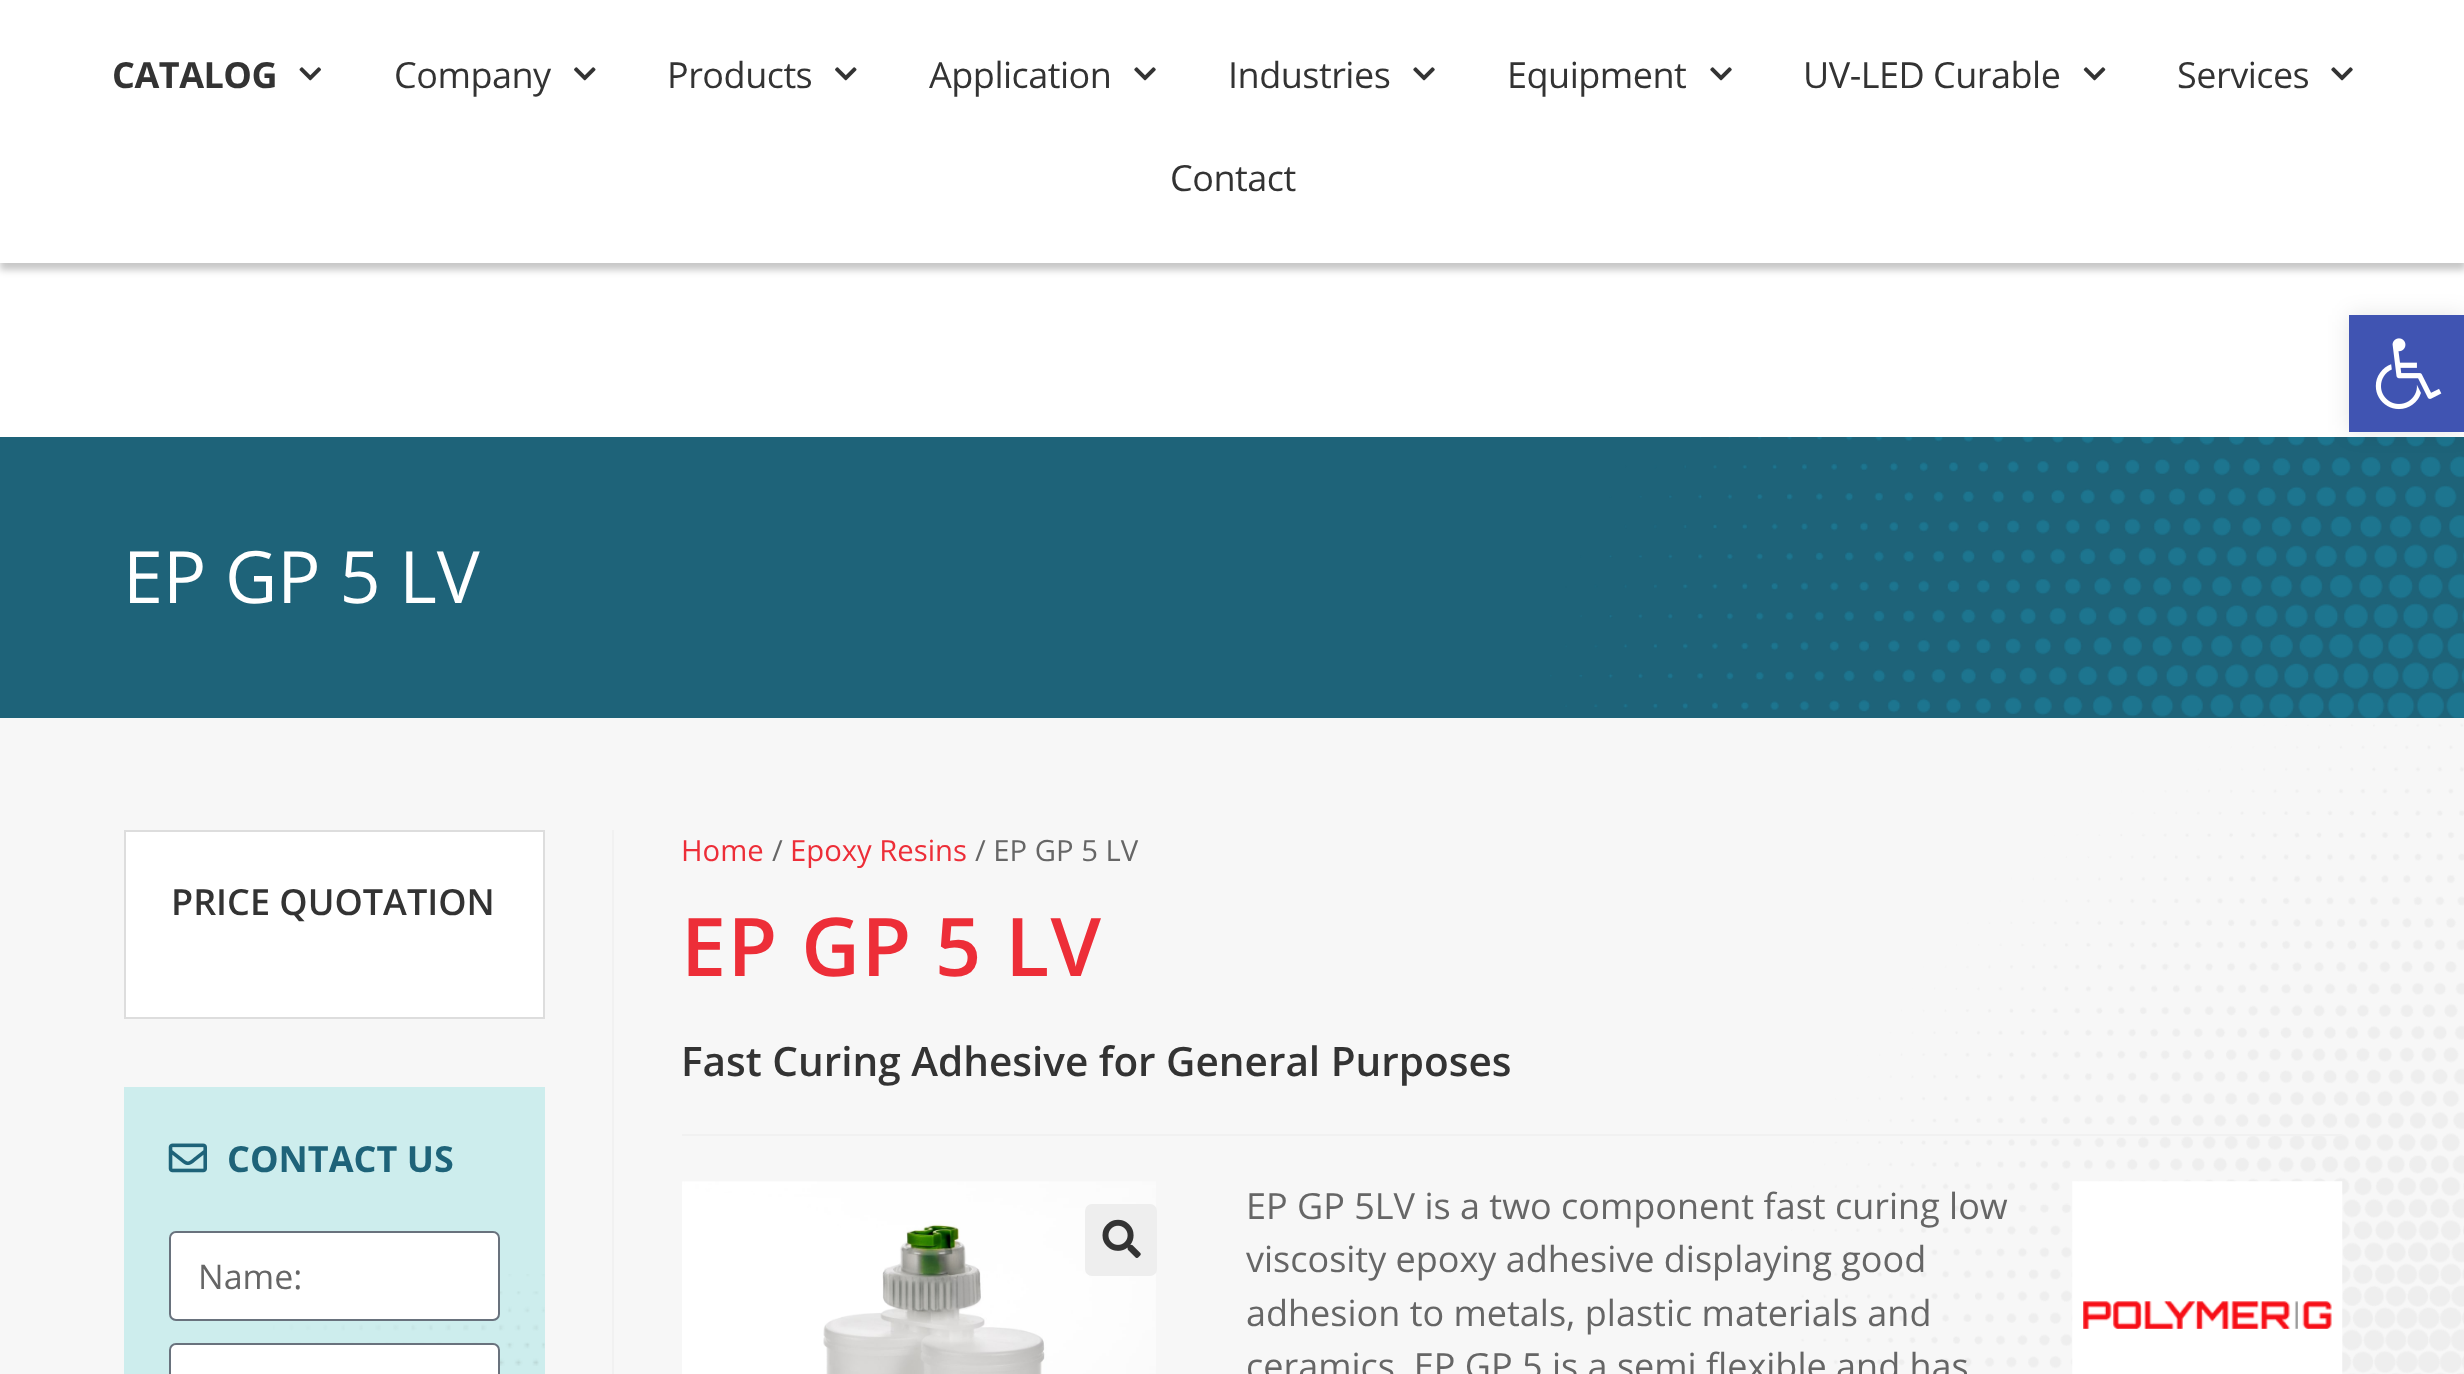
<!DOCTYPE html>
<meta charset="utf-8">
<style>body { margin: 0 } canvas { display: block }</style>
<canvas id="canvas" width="2464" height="1374"></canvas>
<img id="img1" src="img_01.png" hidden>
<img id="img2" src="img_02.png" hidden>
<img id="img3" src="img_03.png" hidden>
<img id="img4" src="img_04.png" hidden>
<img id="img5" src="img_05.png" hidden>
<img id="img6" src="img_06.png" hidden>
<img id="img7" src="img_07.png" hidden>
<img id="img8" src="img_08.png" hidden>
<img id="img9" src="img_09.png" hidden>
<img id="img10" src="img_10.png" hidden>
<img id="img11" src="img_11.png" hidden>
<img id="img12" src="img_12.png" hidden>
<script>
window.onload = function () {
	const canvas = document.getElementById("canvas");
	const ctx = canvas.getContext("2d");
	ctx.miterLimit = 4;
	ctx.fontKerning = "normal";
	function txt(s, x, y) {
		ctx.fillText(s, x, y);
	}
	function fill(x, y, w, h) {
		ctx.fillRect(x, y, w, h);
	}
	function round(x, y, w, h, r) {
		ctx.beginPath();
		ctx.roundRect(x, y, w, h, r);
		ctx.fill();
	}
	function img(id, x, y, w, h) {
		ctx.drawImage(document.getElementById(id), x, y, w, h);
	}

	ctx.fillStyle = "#F7F7F7";
	fill(0, 0, 2464, 1374);
	ctx.fillStyle = "#FFFFFF";
	fill(0, 263, 2464, 174);
	ctx.fillStyle = "rgba(0, 0, 0, 0.22)";
	ctx.filter = "blur(3.5px)";
	ctx.beginPath();
	ctx.rect(0, 7, 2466, 263);
	ctx.fill();
	ctx.filter = "none";
	ctx.fillStyle = "#FFFFFF";
	fill(0, 0, 2464, 263);
	img("img1", 299, 67, 22, 14);
	img("img2", 574, 67, 22, 14);
	img("img2", 835, 67, 22, 14);
	img("img3", 1134, 67, 22, 14);
	img("img3", 1413, 67, 22, 14);
	img("img3", 1710, 67, 22, 14);
	img("img4", 2083, 67, 23, 14);
	img("img3", 2331, 67, 22, 14);
	img("img5", 1791, 723, 673, 651);
	ctx.fillStyle = "#1E6379";
	fill(0, 437, 2464, 281);
	img("img6", 1550, 437, 914, 281);
	ctx.fillStyle = "#FFFFFF";
	ctx.beginPath();
	ctx.rect(125, 831, 419, 187);
	ctx.fill();
	ctx.strokeStyle = "#DDDDDD";
	ctx.lineWidth = 2;
	ctx.stroke();
	ctx.fillStyle = "#CDEDED";
	fill(124, 1087, 421, 287);
	img("img7", 273, 1274, 272, 92);
	img("img8", 168, 1143, 39, 30);
	ctx.fillStyle = "#FFFFFF";
	ctx.beginPath();
	ctx.roundRect(170, 1232, 329, 88, 6);
	ctx.fill();
	ctx.strokeStyle = "#69727D";
	ctx.stroke();
	ctx.beginPath();
	ctx.roundRect(170, 1344, 329, 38, 6);
	ctx.fill();
	ctx.stroke();
	ctx.fillStyle = "#F1F1F1";
	fill(612, 830, 2, 544);
	fill(682, 1134, 1660, 2);
	img("img9", 682, 1181, 474, 193);
	ctx.fillStyle = "#EEEEEE";
	round(1085, 1204, 72, 72, 7);
	img("img10", 1102, 1219, 39, 39);
	img("img11", 2072, 1181, 271, 193);
	ctx.fillStyle = "rgba(0, 0, 0, 0.1)";
	ctx.filter = "blur(11px)";
	ctx.beginPath();
	ctx.rect(2349, 315, 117, 117);
	ctx.fill();
	ctx.filter = "none";
	ctx.fillStyle = "#4054B2";
	fill(2349, 315, 115, 117);
	img("img12", 2375, 338, 67, 72);
	ctx.letterSpacing = "-0.5px";
	ctx.font = "bold 36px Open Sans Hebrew";
	ctx.fillStyle = "#333333";
	txt("CATALOG", 112, 88);
	ctx.font = "36px Open Sans Hebrew";
	txt("Company", 394, 88);
	txt("Products", 667, 88);
	txt("Application", 929, 88);
	txt("Industries", 1228, 88);
	txt("Equipment", 1507, 88);
	txt("UV-LED Curable", 1803, 88);
	txt("Services", 2177, 88);
	txt("Contact", 1170, 191);
	ctx.letterSpacing = "0px";
	ctx.font = "72px Open Sans";
	ctx.fillStyle = "#FFFFFF";
	txt("EP GP 5 LV", 123, 603);
	ctx.font = "600 36px Open Sans";
	ctx.fillStyle = "#333333";
	txt("PRICE QUOTATION", 171, 915);
	ctx.font = "bold 36px Open Sans Hebrew";
	ctx.fillStyle = "#1E6379";
	txt("CONTACT US", 227, 1172);
	ctx.font = "34px Open Sans Hebrew";
	ctx.fillStyle = "#666666";
	txt("Name:", 198, 1289);
	ctx.font = "29.25px Open Sans";
	ctx.fillStyle = "#ED2E38";
	txt("Home", 681, 861);
	ctx.fillStyle = "#666666";
	txt("/", 772, 861);
	ctx.fillStyle = "#ED2E38";
	txt("Epoxy Resins", 790, 861);
	ctx.fillStyle = "#666666";
	txt("/ EP GP 5 LV", 975, 861);
	ctx.letterSpacing = "1.4px";
	ctx.font = "600 81px Open Sans";
	ctx.fillStyle = "#ED2E38";
	txt("EP GP 5 LV", 681, 976);
	ctx.letterSpacing = "0px";
	ctx.font = "600 40.5px Open Sans";
	ctx.fillStyle = "#333333";
	txt("Fast Curing Adhesive for General Purposes", 681, 1076);
	ctx.font = "36px Open Sans";
	ctx.fillStyle = "#666666";
	txt("EP GP 5LV is a two component fast curing low", 1246, 1219);
	txt("viscosity epoxy adhesive displaying good", 1246, 1272);
	txt("adhesion to metals, plastic materials and", 1246, 1326);
	txt("ceramics. EP GP 5 is a semi flexible and has", 1246, 1379);
};
</script>
